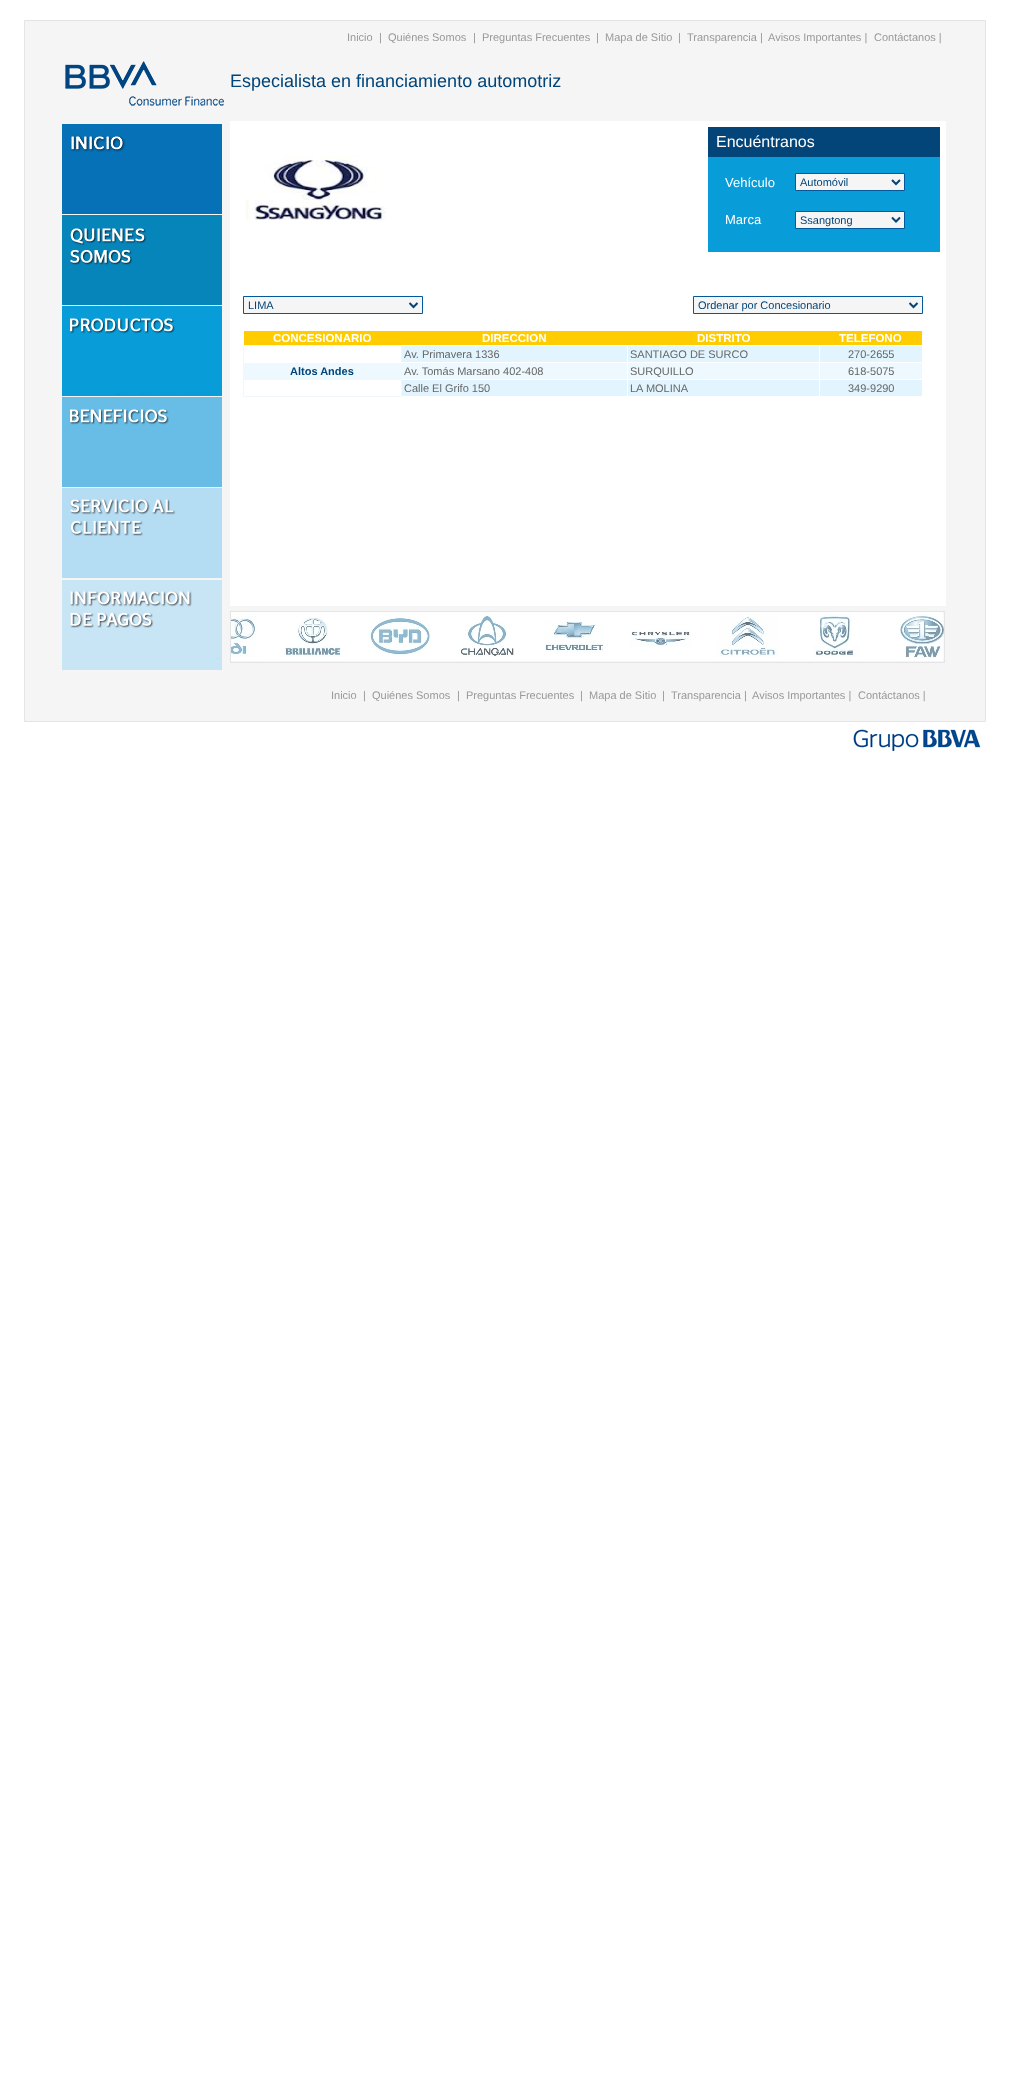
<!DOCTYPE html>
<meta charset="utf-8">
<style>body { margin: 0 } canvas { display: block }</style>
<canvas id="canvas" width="1009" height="2091"></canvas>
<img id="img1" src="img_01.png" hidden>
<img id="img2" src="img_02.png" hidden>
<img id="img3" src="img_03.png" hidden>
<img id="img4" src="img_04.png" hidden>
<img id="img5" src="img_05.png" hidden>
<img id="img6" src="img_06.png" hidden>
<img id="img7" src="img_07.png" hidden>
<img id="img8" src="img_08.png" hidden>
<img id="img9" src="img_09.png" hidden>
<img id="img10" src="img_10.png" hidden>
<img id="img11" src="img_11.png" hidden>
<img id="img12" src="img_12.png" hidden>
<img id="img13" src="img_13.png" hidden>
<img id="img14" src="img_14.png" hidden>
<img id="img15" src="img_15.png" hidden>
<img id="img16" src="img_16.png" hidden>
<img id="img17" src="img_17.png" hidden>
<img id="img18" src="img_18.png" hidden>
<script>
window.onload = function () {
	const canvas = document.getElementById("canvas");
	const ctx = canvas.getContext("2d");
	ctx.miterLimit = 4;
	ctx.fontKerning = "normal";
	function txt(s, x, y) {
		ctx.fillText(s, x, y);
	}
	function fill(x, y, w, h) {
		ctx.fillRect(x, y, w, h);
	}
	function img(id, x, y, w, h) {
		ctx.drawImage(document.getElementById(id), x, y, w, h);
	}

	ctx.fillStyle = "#FFFFFF";
	fill(0, 0, 1009, 2091);
	ctx.fillStyle = "#F5F5F5";
	ctx.beginPath();
	ctx.rect(24.5, 20.5, 961, 701);
	ctx.fill();
	ctx.strokeStyle = "#E4E4E4";
	ctx.stroke();
	img("img1", 65, 61, 159, 45);
	img("img2", 62, 124, 160, 90);
	img("img3", 62, 215, 160, 90);
	img("img4", 62, 306, 160, 90);
	img("img5", 62, 397, 160, 90);
	img("img6", 62, 488, 160, 90);
	img("img7", 62, 580, 160, 90);
	ctx.fillStyle = "#FFFFFF";
	fill(230, 121, 716, 485);
	img("img8", 246, 155, 140, 66);
	ctx.fillStyle = "#034479";
	fill(708, 127, 232, 30);
	ctx.fillStyle = "#089CD8";
	fill(708, 157, 232, 95);
	ctx.fillStyle = "#F5F5F5";
	ctx.beginPath();
	ctx.rect(795.5, 173.5, 109, 17);
	ctx.fill();
	ctx.strokeStyle = "#04599C";
	ctx.stroke();
	ctx.beginPath();
	ctx.moveTo(892, 180);
	ctx.lineTo(896, 184);
	ctx.lineTo(900, 180);
	ctx.strokeStyle = "#034479";
	ctx.lineWidth = 2;
	ctx.stroke();
	ctx.beginPath();
	ctx.rect(795.5, 211.5, 109, 17);
	ctx.fill();
	ctx.strokeStyle = "#04599C";
	ctx.lineWidth = 1;
	ctx.stroke();
	ctx.beginPath();
	ctx.moveTo(892, 217.5);
	ctx.lineTo(896, 221.5);
	ctx.lineTo(900, 217.5);
	ctx.strokeStyle = "#034479";
	ctx.lineWidth = 2;
	ctx.stroke();
	ctx.beginPath();
	ctx.rect(243.5, 296.5, 179, 17);
	ctx.fill();
	ctx.strokeStyle = "#04599C";
	ctx.lineWidth = 1;
	ctx.stroke();
	ctx.beginPath();
	ctx.moveTo(409.5, 303);
	ctx.lineTo(413.5, 307);
	ctx.lineTo(417.5, 303);
	ctx.strokeStyle = "#034479";
	ctx.lineWidth = 2;
	ctx.stroke();
	ctx.beginPath();
	ctx.rect(693.5, 296.5, 229, 17);
	ctx.fill();
	ctx.strokeStyle = "#04599C";
	ctx.lineWidth = 1;
	ctx.stroke();
	ctx.beginPath();
	ctx.moveTo(909.5, 303);
	ctx.lineTo(913.5, 307);
	ctx.lineTo(917.5, 303);
	ctx.strokeStyle = "#034479";
	ctx.lineWidth = 2;
	ctx.stroke();
	ctx.fillStyle = "#E2F5FE";
	fill(402, 346, 520, 50);
	ctx.fillStyle = "#FFCC00";
	fill(244, 331, 678, 14);
	ctx.fillStyle = "#FFFFFF";
	fill(819, 362, 104, 1);
	ctx.fillStyle = "#EDF9FE";
	fill(244, 363, 678, 17);
	ctx.fillStyle = "#FFFFFF";
	fill(819, 379, 104, 1);
	fill(819, 379, 1, 18);
	fill(627, 379, 193, 1);
	fill(819, 362, 1, 18);
	fill(627, 362, 193, 1);
	fill(627, 379, 1, 18);
	fill(401, 379, 227, 1);
	fill(627, 362, 1, 18);
	fill(401, 362, 227, 1);
	fill(627, 345, 1, 18);
	fill(819, 345, 1, 18);
	ctx.fillStyle = "#EDF9FE";
	fill(243, 345, 159, 1);
	fill(401, 345, 1, 52);
	fill(243, 396, 159, 1);
	fill(243, 345, 1, 52);
	ctx.fillStyle = "#FFFFFF";
	fill(231, 612, 712, 49);
	ctx.strokeStyle = "#E5E5E5";
	ctx.lineWidth = 1;
	ctx.strokeRect(230.5, 611.5, 714, 51);
	img("img9", 231, 614, 26, 44);
	img("img10", 284, 617, 57, 41);
	img("img11", 369, 617, 62, 38);
	img("img12", 460, 615, 55, 42);
	img("img13", 544, 621, 60, 32);
	img("img14", 630, 630, 62, 17);
	img("img15", 717, 614, 62, 44);
	img("img16", 813, 614, 47, 44);
	img("img17", 899, 614, 45, 44);
	img("img18", 853, 729, 128, 23);
	ctx.font = "11px Liberation Sans";
	ctx.fillStyle = "#999999";
	txt("Inicio", 347, 41);
	txt("|", 379, 41);
	txt("Quiénes Somos", 388, 41);
	txt("|", 473, 41);
	txt("Preguntas Frecuentes", 482, 41);
	txt("|", 596, 41);
	txt("Mapa de Sitio", 605, 41);
	txt("|", 678, 41);
	txt("Transparencia |", 687, 41);
	txt("Avisos Importantes |", 768, 41);
	txt("Contáctanos |", 874, 41);
	ctx.font = "18px Liberation Sans";
	ctx.fillStyle = "#004479";
	txt("Especialista en financiamiento automotriz", 230, 87);
	ctx.font = "16px Liberation Sans";
	ctx.fillStyle = "#FFFFFF";
	txt("Encuéntranos", 716, 147);
	ctx.font = "13px Liberation Sans";
	txt("Vehículo", 725, 187);
	ctx.font = "11px Liberation Sans";
	ctx.fillStyle = "#004479";
	txt("Automóvil", 800, 186);
	ctx.font = "13px Liberation Sans";
	ctx.fillStyle = "#FFFFFF";
	txt("Marca", 725, 224);
	ctx.font = "11px Liberation Sans";
	ctx.fillStyle = "#004479";
	txt("Ssangtong", 800, 224);
	txt("LIMA", 248, 309);
	txt("Ordenar por Concesionario", 698, 309);
	ctx.font = "bold 11.5px Liberation Sans";
	ctx.fillStyle = "#FFFFFF";
	txt("CONCESIONARIO", 273, 342);
	txt("DIRECCION", 482, 342);
	txt("DISTRITO", 697, 342);
	txt("TELEFONO", 839, 342);
	ctx.font = "11px Liberation Sans";
	ctx.fillStyle = "#666666";
	txt("Av. Primavera 1336", 404, 358);
	txt("SANTIAGO DE SURCO", 630, 358);
	txt("270-2655", 848, 358);
	ctx.font = "bold 11px Liberation Sans";
	ctx.fillStyle = "#004479";
	txt("Altos Andes", 290, 375);
	ctx.font = "11px Liberation Sans";
	ctx.fillStyle = "#666666";
	txt("Av. Tomás Marsano 402-408", 404, 375);
	txt("SURQUILLO", 630, 375);
	txt("618-5075", 848, 375);
	txt("Calle El Grifo 150", 404, 392);
	txt("LA MOLINA", 630, 392);
	txt("349-9290", 848, 392);
	ctx.fillStyle = "#999999";
	txt("Inicio", 331, 699);
	txt("|", 363, 699);
	txt("Quiénes Somos", 372, 699);
	txt("|", 457, 699);
	txt("Preguntas Frecuentes", 466, 699);
	txt("|", 580, 699);
	txt("Mapa de Sitio", 589, 699);
	txt("|", 662, 699);
	txt("Transparencia |", 671, 699);
	txt("Avisos Importantes |", 752, 699);
	txt("Contáctanos |", 858, 699);
};
</script>
